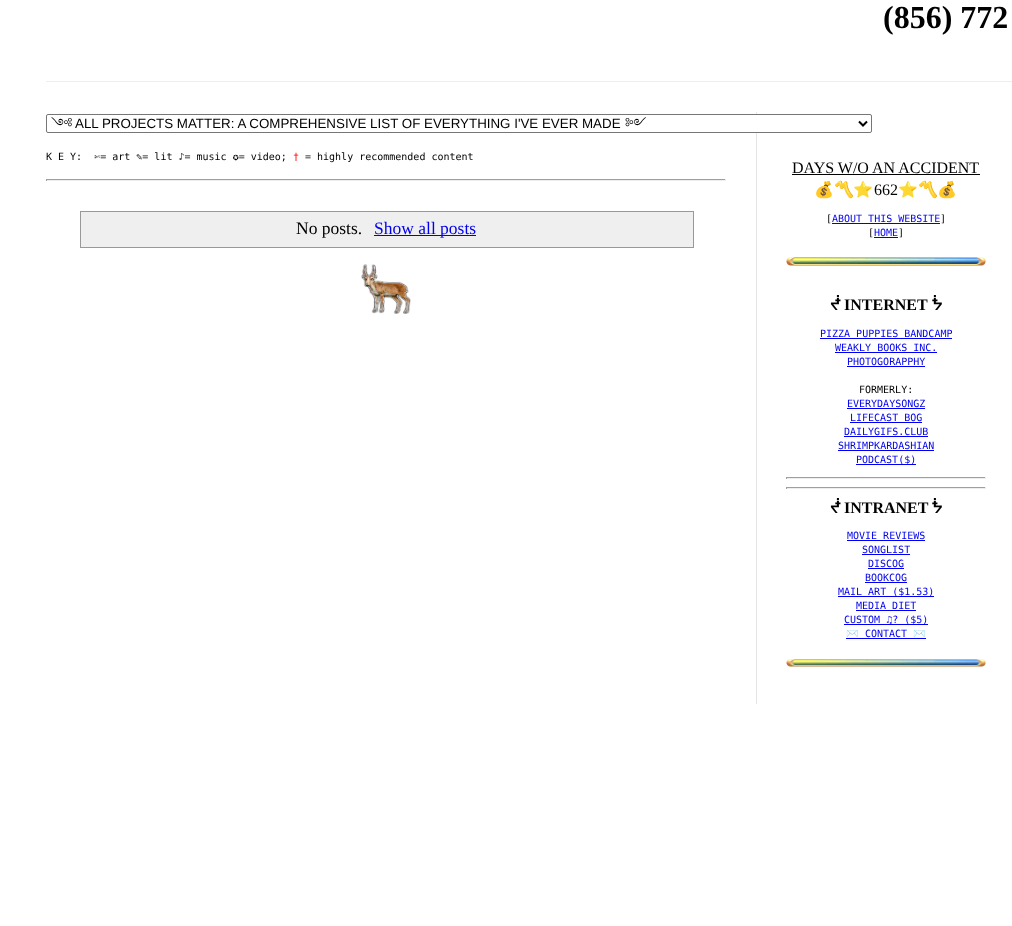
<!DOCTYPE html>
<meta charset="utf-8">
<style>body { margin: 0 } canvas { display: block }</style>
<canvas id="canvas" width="1012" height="926"></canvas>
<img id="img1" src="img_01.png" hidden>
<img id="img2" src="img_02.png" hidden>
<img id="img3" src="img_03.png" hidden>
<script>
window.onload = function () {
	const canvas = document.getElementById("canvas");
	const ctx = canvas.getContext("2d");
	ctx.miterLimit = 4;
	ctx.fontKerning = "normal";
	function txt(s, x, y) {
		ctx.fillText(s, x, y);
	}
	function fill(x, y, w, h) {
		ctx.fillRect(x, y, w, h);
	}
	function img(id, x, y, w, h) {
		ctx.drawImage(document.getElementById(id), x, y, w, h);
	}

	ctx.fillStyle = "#FFFFFF";
	fill(0, 0, 1012, 926);
	ctx.fillStyle = "#EEEEEE";
	fill(46, 81, 966, 1);
	ctx.fillStyle = "#E5E5E5";
	fill(756, 112, 1, 592);
	ctx.fillStyle = "#FFFFFF";
	ctx.beginPath();
	ctx.roundRect(46.5, 114.5, 825, 18, 1.5);
	ctx.fill();
	ctx.strokeStyle = "#767676";
	ctx.stroke();
	ctx.beginPath();
	ctx.moveTo(859, 121.5);
	ctx.lineTo(863, 125.5);
	ctx.lineTo(867, 121.5);
	ctx.strokeStyle = "#000000";
	ctx.lineWidth = 2;
	ctx.stroke();
	ctx.fillStyle = "#9F9F9F";
	fill(46, 179, 680, 1);
	ctx.fillStyle = "#EEEEEE";
	fill(725, 179, 1, 2);
	fill(46, 180, 680, 1);
	ctx.fillStyle = "#9F9F9F";
	fill(46, 179, 1, 2);
	ctx.strokeStyle = "#999999";
	ctx.lineWidth = 1;
	ctx.strokeRect(80.5, 211.5, 613, 36);
	ctx.fillStyle = "#EFEFEF";
	fill(81, 212, 612, 35);
	ctx.fillStyle = "#0000EE";
	fill(374, 235, 102, 1);
	img("img1", 361, 264, 50, 50);
	ctx.fillStyle = "#000000";
	fill(792, 174, 188, 1);
	ctx.fillStyle = "#0000EE";
	fill(832, 223, 108, 1);
	fill(874, 237, 24, 1);
	img("img2", 786, 257, 200, 9);
	fill(820, 338, 132, 1);
	fill(835, 352, 102, 1);
	fill(847, 366, 78, 1);
	fill(847, 408, 78, 1);
	fill(850, 422, 72, 1);
	fill(844, 436, 84, 1);
	fill(838, 450, 96, 1);
	fill(856, 464, 60, 1);
	ctx.fillStyle = "#9F9F9F";
	fill(786, 477, 200, 1);
	ctx.fillStyle = "#EEEEEE";
	fill(985, 477, 1, 2);
	fill(786, 478, 200, 1);
	ctx.fillStyle = "#9F9F9F";
	fill(786, 477, 1, 2);
	fill(786, 487, 200, 1);
	ctx.fillStyle = "#EEEEEE";
	fill(985, 487, 1, 2);
	fill(786, 488, 200, 1);
	ctx.fillStyle = "#9F9F9F";
	fill(786, 487, 1, 2);
	ctx.fillStyle = "#0000EE";
	fill(847, 540, 78, 1);
	fill(862, 554, 48, 1);
	fill(868, 568, 36, 1);
	fill(865, 582, 42, 1);
	fill(838, 596, 96, 1);
	fill(856, 610, 60, 1);
	fill(844, 624, 84, 1);
	fill(846, 638, 80, 1);
	img("img3", 786, 659, 200, 8);
	ctx.font = "bold 32px Liberation Serif";
	ctx.fillStyle = "#000000";
	txt("(856) 772", 883, 28);
	ctx.font = "13.35px Noto Serif Tibetan";
	txt("༺", 51, 128);
	ctx.font = "13.35px Liberation Sans";
	txt("ALL PROJECTS MATTER: A COMPREHENSIVE LIST OF EVERYTHING I'VE EVER MADE", 75, 128);
	ctx.font = "13.35px Noto Serif Tibetan";
	txt("༻", 625, 128);
	ctx.font = "10px DejaVu Sans Mono";
	txt("K E Y:  ✄= art ✎= lit ♪= music ✪= video;", 46, 160);
	ctx.fillStyle = "#FF0000";
	txt("†", 293, 160);
	ctx.fillStyle = "#000000";
	txt("= highly recommended content", 305, 160);
	ctx.font = "17.5px Liberation Serif";
	txt("No posts.", 296, 234);
	ctx.fillStyle = "#0000EE";
	txt("Show all posts", 374, 234);
	ctx.font = "16px Liberation Serif";
	ctx.fillStyle = "#000000";
	txt("DAYS W/O AN ACCIDENT", 792, 173);
	ctx.font = "16px Noto Color Emoji";
	txt("💰〽️⭐", 814, 195);
	ctx.font = "16px Liberation Serif";
	txt("662", 874, 195);
	ctx.font = "16px Noto Color Emoji";
	txt("⭐〽️💰", 898, 195);
	ctx.font = "10px DejaVu Sans Mono";
	txt("[", 826, 222);
	ctx.fillStyle = "#0000EE";
	txt("ABOUT THIS WEBSITE", 832, 222);
	ctx.fillStyle = "#000000";
	txt("]", 940, 222);
	txt("[", 868, 236);
	ctx.fillStyle = "#0000EE";
	txt("HOME", 874, 236);
	ctx.fillStyle = "#000000";
	txt("]", 898, 236);
	ctx.font = "bold 16px DejaVu Sans";
	txt("ᖫ", 830, 310);
	ctx.font = "bold 16px Liberation Serif";
	txt("INTERNET", 844, 310);
	ctx.font = "bold 16px DejaVu Sans";
	txt("ᖭ", 932, 310);
	ctx.font = "10px DejaVu Sans Mono";
	ctx.fillStyle = "#0000EE";
	txt("PIZZA PUPPIES BANDCAMP", 820, 337);
	txt("WEAKLY BOOKS INC.", 835, 351);
	txt("PHOTOGORAPPHY", 847, 365);
	ctx.fillStyle = "#000000";
	txt("FORMERLY:", 859, 393);
	ctx.fillStyle = "#0000EE";
	txt("EVERYDAYSONGZ", 847, 407);
	txt("LIFECAST BOG", 850, 421);
	txt("DAILYGIFS.CLUB", 844, 435);
	txt("SHRIMPKARDASHIAN", 838, 449);
	txt("PODCAST($)", 856, 463);
	ctx.font = "bold 16px DejaVu Sans";
	ctx.fillStyle = "#000000";
	txt("ᖫ", 830, 513);
	ctx.font = "bold 16px Liberation Serif";
	txt("INTRANET", 844, 513);
	ctx.font = "bold 16px DejaVu Sans";
	txt("ᖭ", 932, 513);
	ctx.font = "10px DejaVu Sans Mono";
	ctx.fillStyle = "#0000EE";
	txt("MOVIE REVIEWS", 847, 539);
	txt("SONGLIST", 862, 553);
	txt("DISCOG", 868, 567);
	txt("BOOKCOG", 865, 581);
	txt("MAIL ART ($1.53)", 838, 595);
	txt("MEDIA DIET", 856, 609);
	txt("CUSTOM ♫? ($5)", 844, 623);
	ctx.font = "10px Noto Color Emoji";
	txt("✉️", 846, 637);
	ctx.font = "10px DejaVu Sans Mono";
	txt("CONTACT", 865, 637);
	ctx.font = "10px Noto Color Emoji";
	txt("✉️", 913, 637);
};
</script>
